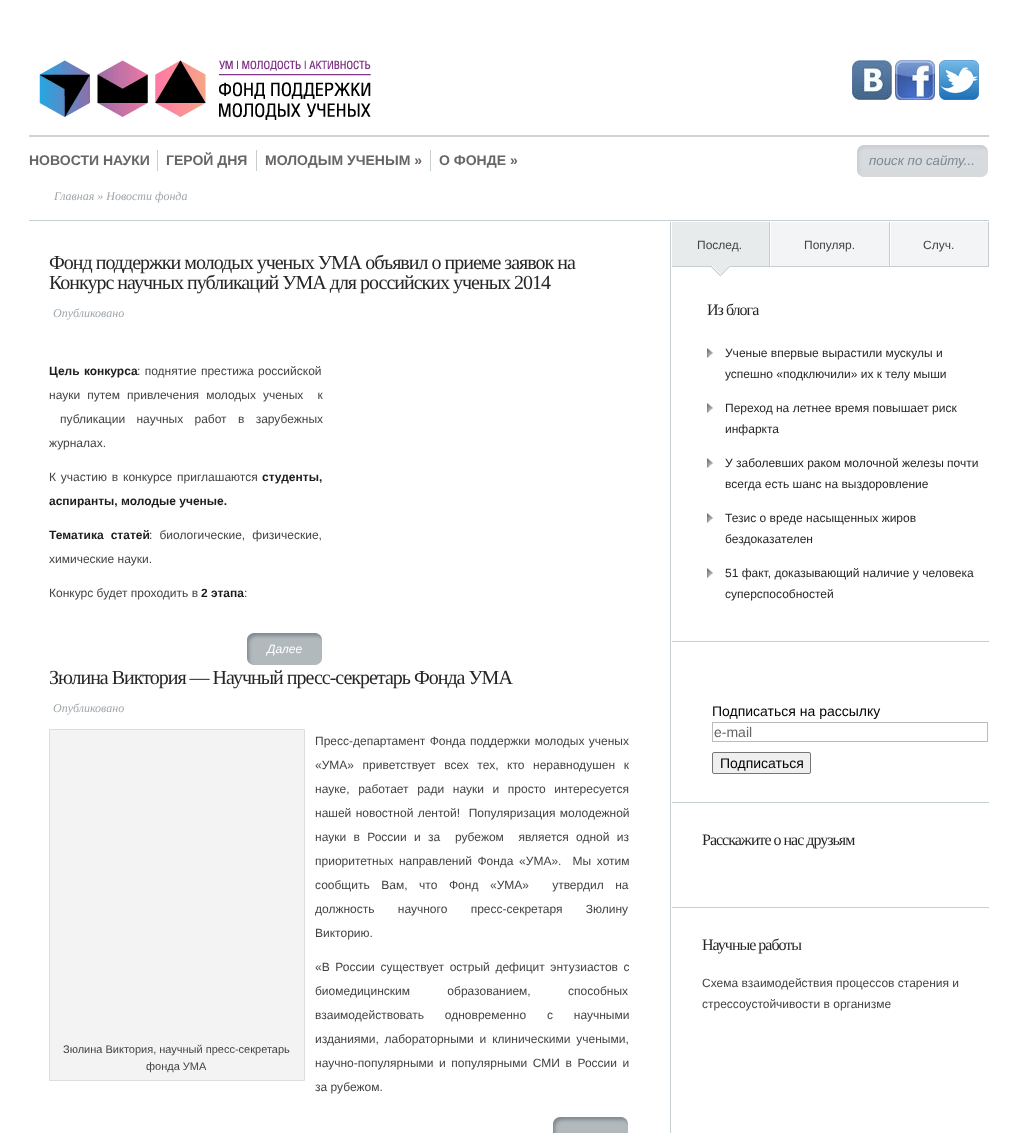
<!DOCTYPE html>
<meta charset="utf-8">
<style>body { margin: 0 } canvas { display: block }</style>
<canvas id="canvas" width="1017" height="1133"></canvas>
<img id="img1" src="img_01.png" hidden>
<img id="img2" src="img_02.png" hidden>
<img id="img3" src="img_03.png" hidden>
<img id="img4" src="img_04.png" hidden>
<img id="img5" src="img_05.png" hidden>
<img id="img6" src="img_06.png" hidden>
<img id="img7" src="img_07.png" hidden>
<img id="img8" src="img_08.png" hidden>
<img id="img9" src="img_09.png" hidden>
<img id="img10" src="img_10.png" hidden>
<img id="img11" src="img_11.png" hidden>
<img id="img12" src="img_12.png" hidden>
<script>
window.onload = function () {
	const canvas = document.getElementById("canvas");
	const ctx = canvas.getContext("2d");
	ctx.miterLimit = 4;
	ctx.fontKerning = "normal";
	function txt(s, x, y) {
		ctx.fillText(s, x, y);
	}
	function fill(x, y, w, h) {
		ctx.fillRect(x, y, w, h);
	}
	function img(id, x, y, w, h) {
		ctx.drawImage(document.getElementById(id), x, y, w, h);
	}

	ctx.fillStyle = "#FFFFFF";
	fill(0, 0, 1017, 1133);
	img("img1", 39, 60, 332, 60);
	ctx.fillStyle = "#D2D2D2";
	fill(29, 135, 960, 2);
	img("img2", 852, 60, 40, 40);
	img("img3", 895, 60, 40, 40);
	img("img4", 939, 60, 40, 40);
	ctx.fillStyle = "#C7CED1";
	fill(157, 150, 1, 21);
	fill(256, 150, 1, 21);
	fill(430, 150, 1, 21);
	img("img5", 857, 145, 131, 32);
	fill(29, 220, 960, 1);
	fill(670, 222, 1, 911);
	img("img6", 314, 633, 8, 32);
	img("img7", 247, 633, 67, 32);
	ctx.fillStyle = "#F3F3F3";
	ctx.beginPath();
	ctx.rect(49.5, 729.5, 255, 351);
	ctx.fill();
	ctx.strokeStyle = "#DDDDDD";
	ctx.stroke();
	img("img8", 620, 1117, 8, 16);
	img("img9", 553, 1117, 67, 16);
	ctx.fillStyle = "#C7CED1";
	fill(672, 641, 317, 1);
	img("img10", 672, 222, 317, 45);
	img("img11", 711, 266, 19, 11);
	ctx.fillStyle = "#E8EBEC";
	fill(672, 222, 97, 44);
	img("img12", 707, 348, 6, 10);
	img("img12", 707, 403, 6, 10);
	img("img12", 707, 458, 6, 10);
	img("img12", 707, 513, 6, 10);
	img("img12", 707, 568, 6, 10);
	ctx.fillStyle = "#C7CED1";
	fill(672, 802, 317, 1);
	ctx.strokeStyle = "#BBBBBB";
	ctx.strokeRect(712.5, 722.5, 275, 19);
	ctx.fillStyle = "#EFEFEF";
	ctx.beginPath();
	ctx.roundRect(712.5, 752.5, 98, 21, 1.5);
	ctx.fill();
	ctx.strokeStyle = "#767676";
	ctx.stroke();
	ctx.fillStyle = "#C7CED1";
	fill(672, 907, 317, 1);
	ctx.font = "bold 14px Liberation Sans";
	ctx.fillStyle = "#666666";
	txt("НОВОСТИ НАУКИ", 29, 165);
	txt("ГЕРОЙ ДНЯ", 166, 165);
	txt("МОЛОДЫМ УЧЕНЫМ »", 265, 165);
	txt("О ФОНДЕ »", 439, 165);
	ctx.font = "italic 13.25px Liberation Sans";
	ctx.fillStyle = "#7D8990";
	txt("поиск по сайту...", 869, 165);
	ctx.font = "italic 12px Liberation Serif";
	ctx.fillStyle = "#A0A7AC";
	txt("Главная » Новости фонда", 54, 200);
	ctx.letterSpacing = "-1px";
	ctx.font = "20px Liberation Serif";
	ctx.fillStyle = "#262626";
	txt("Фонд поддержки молодых ученых УМА объявил о приеме заявок на", 49, 269);
	txt("Конкурс научных публикаций УМА для российских ученых 2014", 49, 289);
	ctx.letterSpacing = "0px";
	ctx.font = "italic 12px Liberation Serif";
	ctx.fillStyle = "#A0A7AC";
	txt("Опубликовано", 53, 317);
	ctx.wordSpacing = "1px";
	ctx.font = "bold 12px Liberation Sans";
	ctx.fillStyle = "#1C1C1C";
	txt("Цель конкурса", 49, 375);
	ctx.font = "12px Liberation Sans";
	ctx.fillStyle = "#434343";
	txt(": поднятие престижа российской", 137, 375);
	ctx.wordSpacing = "3.75px";
	txt("науки путем привлечения молодых ученых  к", 49, 399);
	ctx.wordSpacing = "8px";
	txt("публикации научных работ в зарубежных", 60, 423);
	ctx.wordSpacing = "0px";
	txt("журналах.", 49, 447);
	ctx.wordSpacing = "1.5px";
	txt("К участию в конкурсе приглашаются", 49, 481);
	ctx.wordSpacing = "0px";
	ctx.font = "bold 12px Liberation Sans";
	ctx.fillStyle = "#1C1C1C";
	txt("студенты,", 262, 481);
	txt("аспиранты, молодые ученые.", 49, 505);
	ctx.wordSpacing = "3.75px";
	txt("Тематика статей", 49, 539);
	ctx.font = "12px Liberation Sans";
	ctx.fillStyle = "#434343";
	txt(": биологические, физические,", 149, 539);
	ctx.wordSpacing = "0px";
	txt("химические науки.", 49, 563);
	txt("Конкурс будет проходить в", 49, 597);
	ctx.font = "bold 12px Liberation Sans";
	ctx.fillStyle = "#1C1C1C";
	txt("2 этапа", 201, 597);
	ctx.font = "12px Liberation Sans";
	ctx.fillStyle = "#434343";
	txt(":", 244, 597);
	ctx.font = "italic 12px Liberation Sans";
	ctx.fillStyle = "#FFFFFF";
	txt("Далее", 267, 653);
	ctx.letterSpacing = "-1px";
	ctx.font = "20px Liberation Serif";
	ctx.fillStyle = "#262626";
	txt("Зюлина Виктория — Научный пресс-секретарь Фонда УМА", 49, 684);
	ctx.letterSpacing = "0px";
	ctx.font = "italic 12px Liberation Serif";
	ctx.fillStyle = "#A0A7AC";
	txt("Опубликовано", 53, 712);
	ctx.wordSpacing = "1px";
	ctx.font = "12px Liberation Sans";
	ctx.fillStyle = "#434343";
	txt("Пресс-департамент Фонда поддержки молодых ученых", 315, 745);
	ctx.wordSpacing = "5.25px";
	txt("«УМА» приветствует всех тех, кто неравнодушен к", 315, 769);
	txt("науке, работает ради науки и просто интересуется", 315, 793);
	ctx.wordSpacing = "1px";
	txt("нашей новостной лентой!  Популяризация молодежной", 315, 817);
	ctx.wordSpacing = "4px";
	txt("науки в России и за  рубежом  является одной из", 315, 841);
	ctx.wordSpacing = "2.25px";
	txt("приоритетных направлений Фонда «УМА».  Мы хотим", 315, 865);
	ctx.wordSpacing = "8.25px";
	txt("сообщить Вам, что Фонд «УМА»  утвердил на", 315, 889);
	ctx.wordSpacing = "20px";
	txt("должность научного пресс-секретаря Зюлину", 315, 913);
	ctx.wordSpacing = "0px";
	txt("Викторию.", 315, 937);
	ctx.font = "11px Liberation Sans";
	txt("Зюлина Виктория, научный пресс-секретарь", 63, 1053);
	txt("фонда УМА", 146, 1070);
	ctx.wordSpacing = "2.25px";
	ctx.font = "12px Liberation Sans";
	txt("«В России существует острый дефицит энтузиастов с", 315, 971);
	ctx.wordSpacing = "34px";
	txt("биомедицинским образованием, способных", 315, 995);
	ctx.wordSpacing = "17.5px";
	txt("взаимодействовать одновременно с научными", 315, 1019);
	ctx.wordSpacing = "2.5px";
	txt("изданиями, лабораторными и клиническими учеными,", 315, 1043);
	ctx.wordSpacing = "2.25px";
	txt("научно-популярными и популярными СМИ в России и", 315, 1067);
	ctx.wordSpacing = "0px";
	txt("за рубежом.", 315, 1091);
	txt("Послед.", 697, 249);
	txt("Популяр.", 804, 249);
	txt("Случ.", 923, 249);
	ctx.letterSpacing = "-1px";
	ctx.font = "16px Liberation Serif";
	ctx.fillStyle = "#262626";
	txt("Из блога", 707, 315);
	ctx.letterSpacing = "0px";
	ctx.font = "12px Liberation Sans";
	txt("Ученые впервые вырастили мускулы и", 725, 357);
	txt("успешно «подключили» их к телу мыши", 725, 378);
	txt("Переход на летнее время повышает риск", 725, 412);
	txt("инфаркта", 725, 433);
	txt("У заболевших раком молочной железы почти", 725, 467);
	txt("всегда есть шанс на выздоровление", 725, 488);
	txt("Тезис о вреде насыщенных жиров", 725, 522);
	txt("бездоказателен", 725, 543);
	txt("51 факт, доказывающий наличие у человека", 725, 577);
	txt("суперспособностей", 725, 598);
	ctx.font = "14px Liberation Sans";
	ctx.fillStyle = "#000000";
	txt("Подписаться на рассылку", 712, 716);
	ctx.fillStyle = "#666666";
	txt("e-mail", 714, 737);
	ctx.fillStyle = "#000000";
	txt("Подписаться", 720, 768);
	ctx.letterSpacing = "-1px";
	ctx.font = "16px Liberation Serif";
	ctx.fillStyle = "#262626";
	txt("Расскажите о нас друзьям", 702, 845);
	txt("Научные работы", 702, 950);
	ctx.letterSpacing = "0px";
	ctx.font = "12px Liberation Sans";
	ctx.fillStyle = "#434343";
	txt("Схема взаимодействия процессов старения и", 702, 987);
	txt("стрессоустойчивости в организме", 702, 1008);
};
</script>
